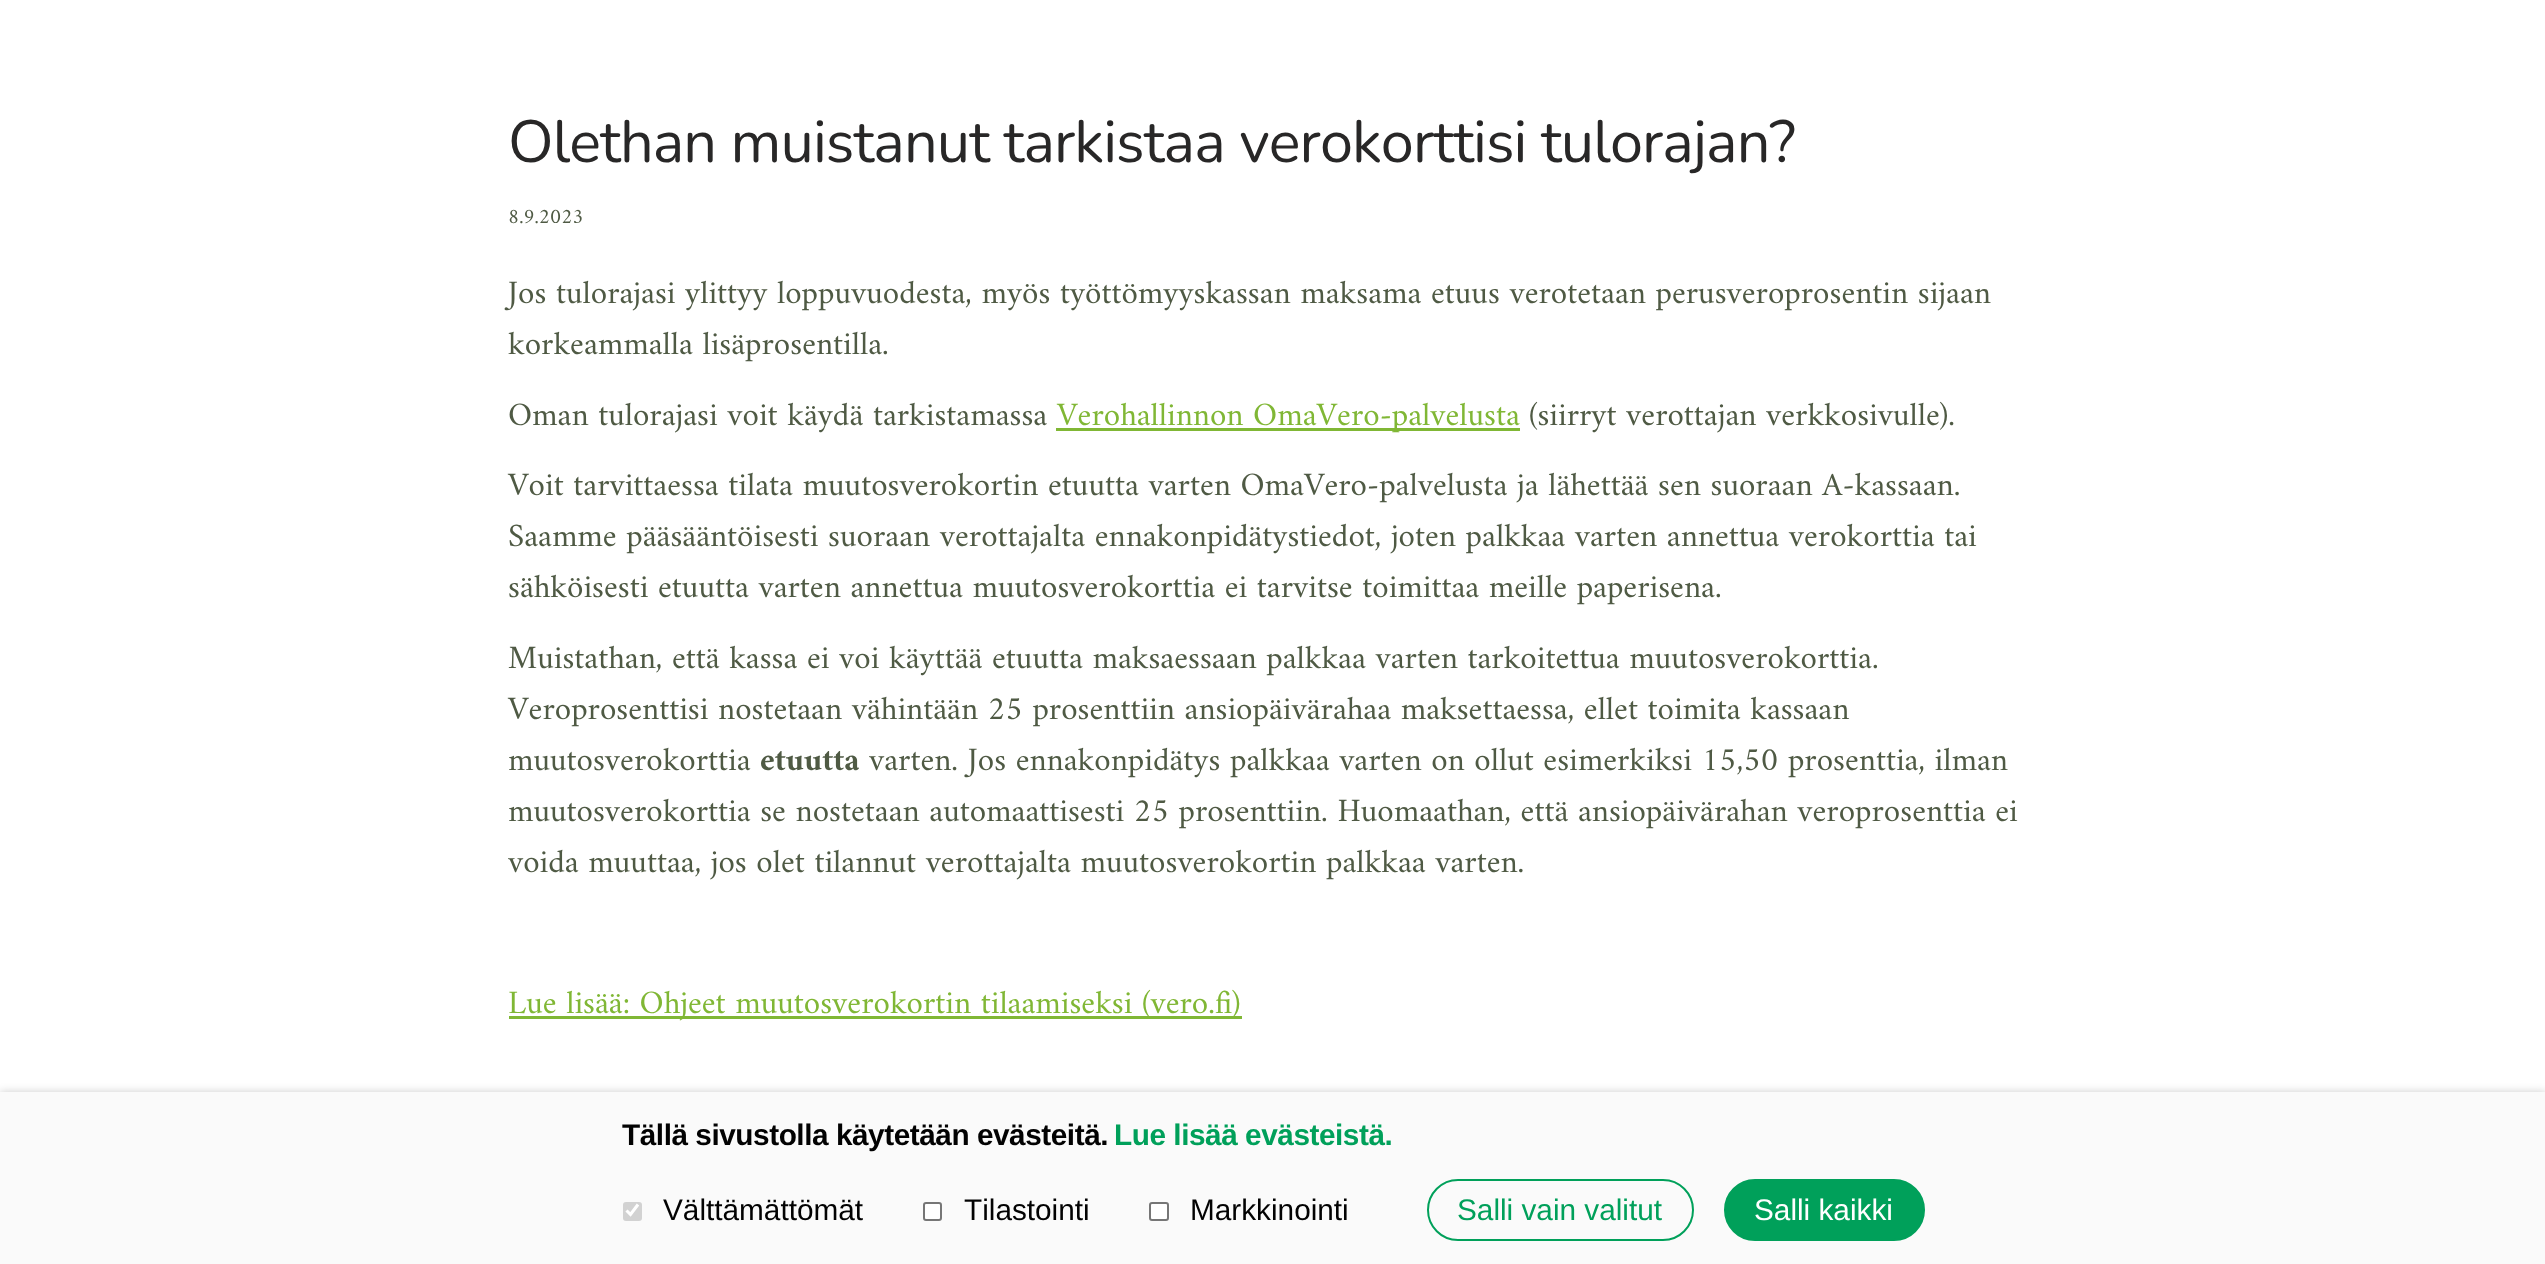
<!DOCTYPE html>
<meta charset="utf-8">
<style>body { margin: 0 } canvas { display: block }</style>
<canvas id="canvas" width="2545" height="1264"></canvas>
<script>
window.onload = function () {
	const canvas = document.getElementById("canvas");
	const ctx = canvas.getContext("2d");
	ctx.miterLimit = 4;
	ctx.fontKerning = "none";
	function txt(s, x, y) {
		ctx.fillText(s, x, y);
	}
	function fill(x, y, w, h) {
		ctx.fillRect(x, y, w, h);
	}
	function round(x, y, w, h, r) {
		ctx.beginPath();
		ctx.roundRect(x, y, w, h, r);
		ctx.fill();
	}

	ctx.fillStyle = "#FFFFFF";
	fill(0, 0, 2545, 1264);
	ctx.fillStyle = "#80B735";
	fill(1056, 428, 464, 3);
	fill(509, 1016, 733, 3);
	ctx.fillStyle = "rgba(0, 0, 0, 0.2)";
	ctx.filter = "blur(4px)";
	ctx.beginPath();
	ctx.rect(0, 1092, 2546, 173);
	ctx.fill();
	ctx.filter = "none";
	ctx.fillStyle = "#FAFAFA";
	fill(0, 1092, 2545, 172);
	ctx.fillStyle = "#D2D2D2";
	round(623, 1202, 19, 19, 3);
	ctx.beginPath();
	ctx.moveTo(626.5, 1210.5);
	ctx.lineTo(630.5, 1214.5);
	ctx.lineTo(638, 1204.5);
	ctx.strokeStyle = "#FFFFFF";
	ctx.lineWidth = 3.1;
	ctx.stroke();
	ctx.fillStyle = "#FFFFFF";
	ctx.beginPath();
	ctx.roundRect(924, 1203, 17, 17, 2);
	ctx.fill();
	ctx.strokeStyle = "#767676";
	ctx.lineWidth = 2;
	ctx.stroke();
	ctx.beginPath();
	ctx.roundRect(1150, 1203, 18, 17, 2);
	ctx.fill();
	ctx.stroke();
	ctx.beginPath();
	ctx.roundRect(1428, 1180, 265, 60, 30);
	ctx.strokeStyle = "#00A05A";
	ctx.stroke();
	ctx.fillStyle = "#00A05A";
	ctx.beginPath();
	ctx.roundRect(1725, 1180, 199, 60, 30);
	ctx.fill();
	ctx.stroke();
	ctx.letterSpacing = "-0.9px";
	ctx.font = "200 59.4px Nunito";
	ctx.fillStyle = "#282727";
	txt("Olethan muistanut tarkistaa verokorttisi tulorajan?", 508, 162);
	ctx.letterSpacing = "0px";
	ctx.font = "21px Amiri";
	ctx.fillStyle = "#4F5A44";
	txt("8.9.2023", 508, 223);
	ctx.font = "33px Amiri";
	txt("Jos tulorajasi ylittyy loppuvuodesta, myös työttömyyskassan maksama etuus verotetaan perusveroprosentin sijaan", 508, 303);
	txt("korkeammalla lisäprosentilla.", 508, 354);
	txt("Oman tulorajasi voit käydä tarkistamassa", 508, 425);
	ctx.fillStyle = "#80B735";
	txt("Verohallinnon OmaVero-palvelusta", 1057, 425);
	ctx.fillStyle = "#4F5A44";
	txt("(siirryt verottajan verkkosivulle).", 1529, 425);
	txt("Voit tarvittaessa tilata muutosverokortin etuutta varten OmaVero-palvelusta", 508, 495);
	txt("ja lähettää sen suoraan A-kassaan.", 1517, 495);
	txt("Saamme pääsääntöisesti suoraan verottajalta ennakonpidätystiedot, joten palkkaa varten annettua verokorttia tai", 508, 546);
	txt("sähköisesti etuutta varten annettua muutosverokorttia ei tarvitse toimittaa meille paperisena.", 508, 597);
	txt("Muistathan, että kassa ei voi käyttää etuutta maksaessaan palkkaa varten tarkoitettua muutosverokorttia.", 508, 668);
	txt("Veroprosenttisi nostetaan vähintään 25 prosenttiin ansiopäivärahaa maksettaessa, ellet toimita kassaan", 508, 719);
	txt("muutosverokorttia", 508, 770);
	ctx.font = "bold 33px Amiri";
	txt("etuutta", 760, 770);
	ctx.font = "33px Amiri";
	txt("varten. Jos ennakonpidätys palkkaa varten on ollut esimerkiksi 15,50 prosenttia, ilman", 869, 770);
	txt("muutosverokorttia se nostetaan automaattisesti 25 prosenttiin. Huomaathan, että ansiopäivärahan veroprosenttia ei", 508, 821);
	txt("voida muuttaa, jos olet tilannut verottajalta muutosverokortin palkkaa varten.", 508, 872);
	ctx.fillStyle = "#80B735";
	txt("Lue lisää: Ohjeet muutosverokortin tilaamiseksi (vero.fi)", 508, 1013);
	ctx.letterSpacing = "-0.45px";
	ctx.font = "bold 29.75px Liberation Sans";
	ctx.fillStyle = "#020202";
	txt("Tällä sivustolla käytetään evästeitä.", 622, 1145);
	ctx.fillStyle = "#00A05A";
	txt("Lue lisää evästeistä.", 1114, 1145);
	ctx.letterSpacing = "0px";
	ctx.font = "29.75px Liberation Sans";
	ctx.fillStyle = "#020202";
	txt("Välttämättömät", 663, 1220);
	txt("Tilastointi", 964, 1220);
	txt("Markkinointi", 1190, 1220);
	ctx.fillStyle = "#00A05A";
	txt("Salli vain valitut", 1457, 1220);
	ctx.fillStyle = "#FFFFFF";
	txt("Salli kaikki", 1754, 1220);
};
</script>
